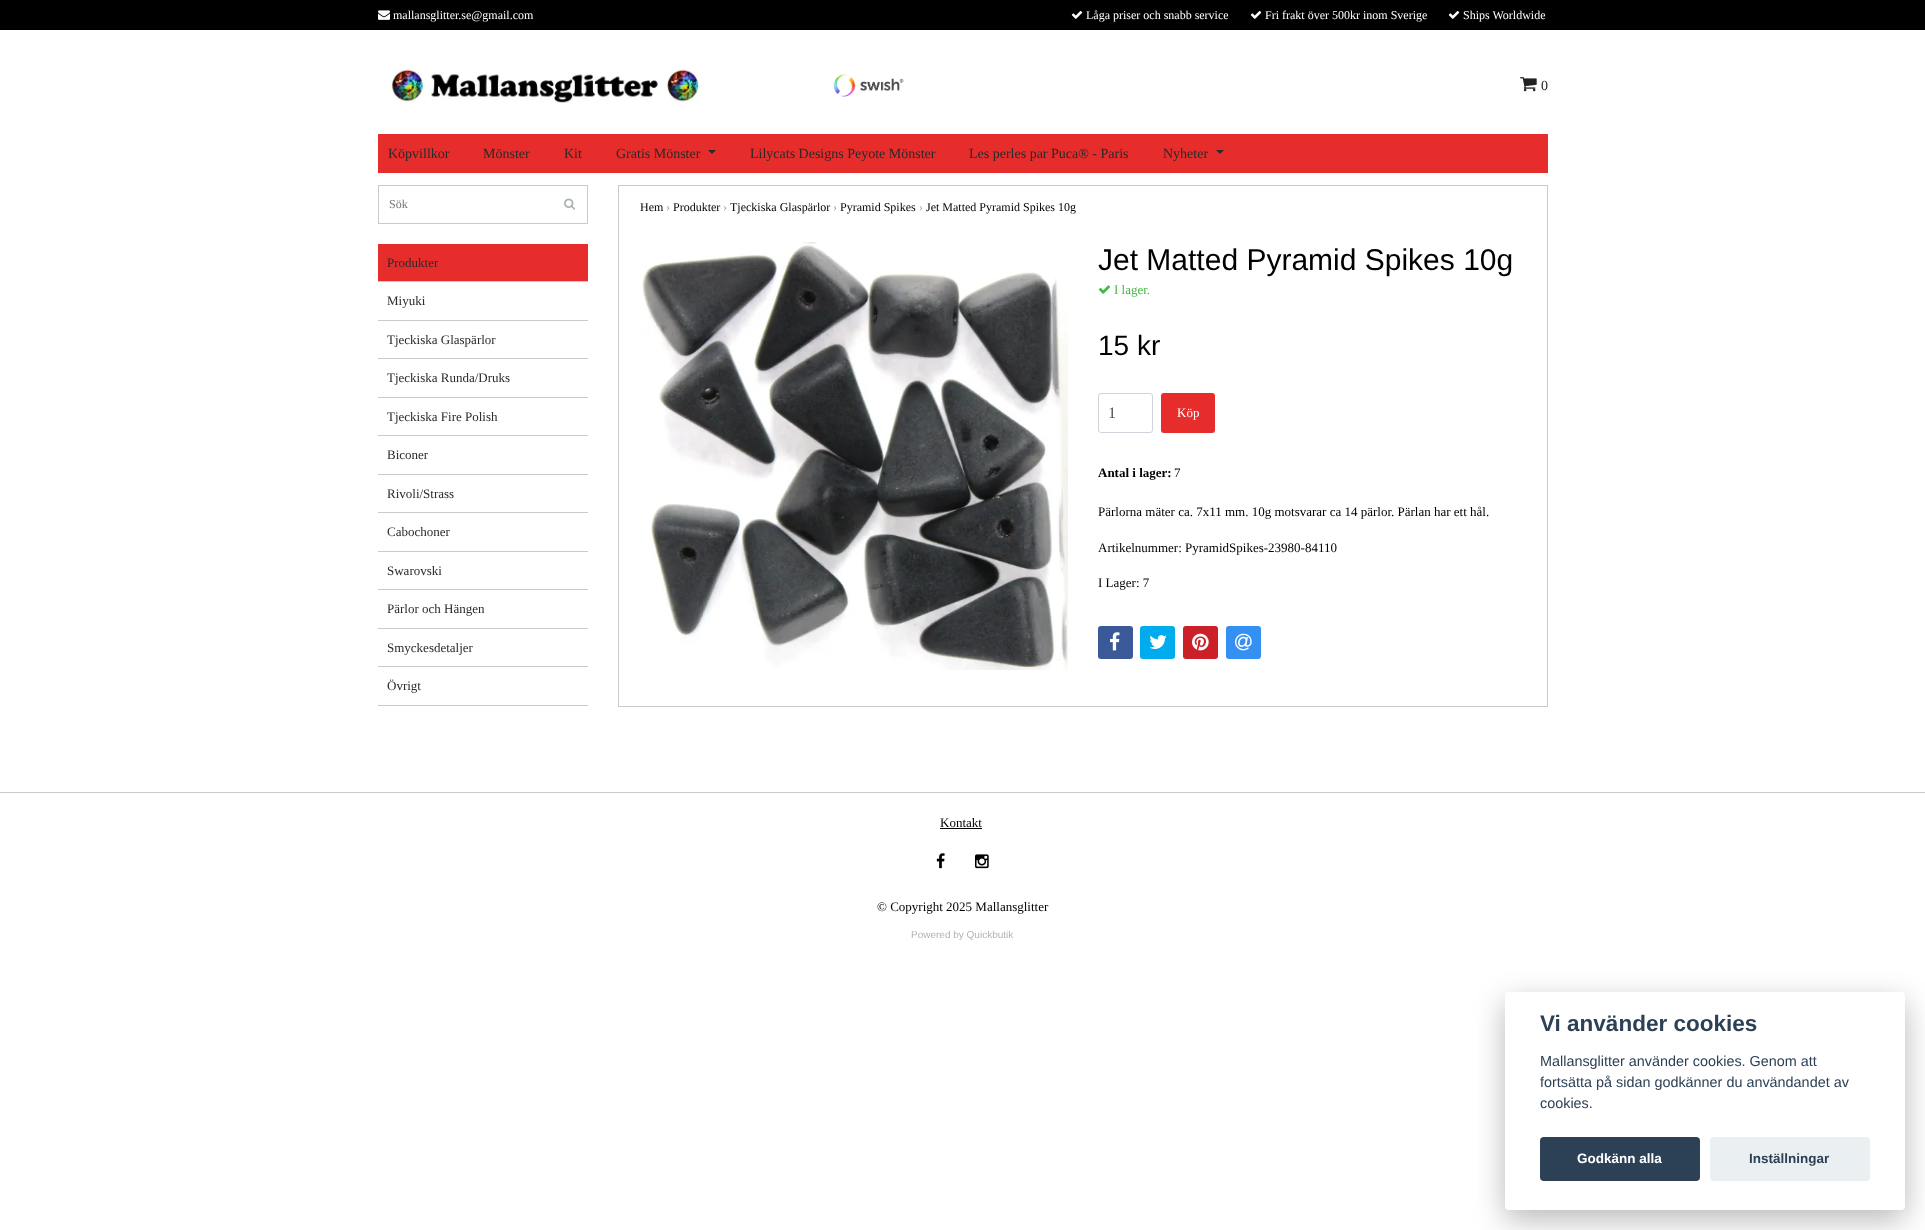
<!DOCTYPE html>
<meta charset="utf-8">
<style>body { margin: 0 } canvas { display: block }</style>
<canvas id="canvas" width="1925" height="1230"></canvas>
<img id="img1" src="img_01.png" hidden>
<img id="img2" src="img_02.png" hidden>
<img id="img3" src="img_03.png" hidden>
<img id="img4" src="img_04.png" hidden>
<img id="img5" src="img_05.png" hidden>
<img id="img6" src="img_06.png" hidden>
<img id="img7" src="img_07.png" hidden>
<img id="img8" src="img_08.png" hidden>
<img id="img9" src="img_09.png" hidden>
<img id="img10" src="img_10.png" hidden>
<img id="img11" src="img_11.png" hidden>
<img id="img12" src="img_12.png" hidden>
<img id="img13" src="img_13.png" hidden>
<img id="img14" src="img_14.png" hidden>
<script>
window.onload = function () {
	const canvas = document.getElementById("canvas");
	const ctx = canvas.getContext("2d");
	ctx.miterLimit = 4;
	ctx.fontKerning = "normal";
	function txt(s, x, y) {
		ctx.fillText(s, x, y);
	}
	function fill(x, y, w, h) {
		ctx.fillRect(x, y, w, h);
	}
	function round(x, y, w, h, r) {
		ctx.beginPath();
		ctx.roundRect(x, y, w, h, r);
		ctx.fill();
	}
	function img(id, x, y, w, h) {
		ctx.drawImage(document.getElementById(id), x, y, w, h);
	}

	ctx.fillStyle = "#FFFFFF";
	fill(0, 0, 1925, 1230);
	ctx.fillStyle = "#000000";
	fill(0, 0, 1925, 30);
	img("img1", 378, 10, 12, 10);
	img("img2", 1071, 11, 12, 8);
	img("img2", 1250, 11, 12, 8);
	img("img2", 1448, 11, 12, 8);
	img("img3", 391, 69, 309, 34);
	img("img4", 833, 74, 71, 23);
	img("img5", 1520, 77, 17, 15);
	ctx.fillStyle = "#E72C2C";
	fill(378, 134, 1170, 39);
	ctx.fillStyle = "#2A2A2A";
	ctx.beginPath();
	ctx.moveTo(708, 150);
	ctx.lineTo(716, 150);
	ctx.lineTo(712, 154);
	ctx.closePath();
	ctx.fill();
	ctx.beginPath();
	ctx.moveTo(1216, 150);
	ctx.lineTo(1224, 150);
	ctx.lineTo(1220, 154);
	ctx.closePath();
	ctx.fill();
	ctx.strokeStyle = "#CCC9C9";
	ctx.strokeRect(378.5, 185.5, 209, 38);
	img("img6", 564, 198, 11, 12);
	ctx.fillStyle = "#E72C2C";
	fill(378, 244, 210, 37);
	ctx.fillStyle = "#CCC9C9";
	fill(378, 281, 210, 1);
	fill(378, 320, 210, 1);
	fill(378, 358, 210, 1);
	fill(378, 397, 210, 1);
	fill(378, 435, 210, 1);
	fill(378, 474, 210, 1);
	fill(378, 512, 210, 1);
	fill(378, 551, 210, 1);
	fill(378, 589, 210, 1);
	fill(378, 628, 210, 1);
	fill(378, 666, 210, 1);
	fill(378, 705, 210, 1);
	ctx.strokeRect(618.5, 185.5, 929, 521);
	img("img7", 641, 242, 427, 428);
	img("img8", 1098, 285, 13, 9);
	ctx.beginPath();
	ctx.roundRect(1098.5, 393.5, 54, 39, 2.5);
	ctx.strokeStyle = "#CED4DA";
	ctx.stroke();
	ctx.fillStyle = "#E72C2C";
	round(1161, 393, 54, 40, 3);
	ctx.fillStyle = "#3B5998";
	round(1098, 626, 35, 33, 3);
	img("img9", 1110, 632, 10, 19);
	ctx.fillStyle = "#00ACED";
	round(1140, 626, 35, 33, 3);
	img("img10", 1149, 635, 18, 14);
	ctx.fillStyle = "#CB2027";
	round(1183, 626, 35, 33, 3);
	img("img11", 1192, 633, 17, 18);
	ctx.fillStyle = "#3490F3";
	round(1226, 626, 35, 33, 3);
	img("img12", 1235, 633, 17, 18);
	ctx.fillStyle = "#CCC9C9";
	fill(0, 792, 1925, 1);
	ctx.fillStyle = "#000000";
	fill(940, 828, 42, 1);
	img("img13", 936, 853, 9, 16);
	img("img14", 975, 854, 14, 15);
	ctx.fillStyle = "rgba(2, 2, 3, 0.28)";
	ctx.filter = "blur(15px)";
	ctx.beginPath();
	ctx.roundRect(1505, 1002, 400, 218, 4);
	ctx.fill();
	ctx.filter = "none";
	ctx.fillStyle = "#FFFFFF";
	round(1505, 992, 400, 218, 4);
	ctx.fillStyle = "#2D4156";
	round(1540, 1137, 160, 44, 4);
	ctx.fillStyle = "#EAEFF2";
	round(1710, 1137, 160, 44, 4);
	ctx.font = "12px Liberation Serif";
	ctx.fillStyle = "#FFFFFF";
	txt("mallansglitter.se@gmail.com", 393, 19);
	txt("Låga priser och snabb service", 1086, 19);
	txt("Fri frakt över 500kr inom Sverige", 1265, 19);
	txt("Ships Worldwide", 1463, 19);
	ctx.font = "14px Liberation Serif";
	ctx.fillStyle = "#222222";
	txt("0", 1541, 90);
	ctx.fillStyle = "#2A2A2A";
	txt("Köpvillkor", 388, 158);
	txt("Mönster", 483, 158);
	txt("Kit", 564, 158);
	txt("Gratis Mönster", 616, 158);
	txt("Lilycats Designs Peyote Mönster", 750, 158);
	txt("Les perles par Puca® - Paris", 969, 158);
	txt("Nyheter", 1163, 158);
	ctx.font = "12px Liberation Serif";
	ctx.fillStyle = "#757575";
	txt("Sök", 389, 208);
	ctx.font = "13px Liberation Serif";
	ctx.fillStyle = "#2A2A2A";
	txt("Produkter", 387, 267);
	txt("Miyuki", 387, 305);
	txt("Tjeckiska Glaspärlor", 387, 344);
	txt("Tjeckiska Runda/Druks", 387, 382);
	txt("Tjeckiska Fire Polish", 387, 421);
	txt("Biconer", 387, 459);
	txt("Rivoli/Strass", 387, 498);
	txt("Cabochoner", 387, 536);
	txt("Swarovski", 387, 575);
	txt("Pärlor och Hängen", 387, 613);
	txt("Smyckesdetaljer", 387, 652);
	txt("Övrigt", 387, 690);
	ctx.font = "12px Liberation Serif";
	ctx.fillStyle = "#000000";
	txt("Hem", 640, 211);
	ctx.fillStyle = "#A1A1A1";
	txt("›", 666, 211);
	ctx.fillStyle = "#000000";
	txt("Produkter", 673, 211);
	ctx.fillStyle = "#A1A1A1";
	txt("›", 723, 211);
	ctx.fillStyle = "#000000";
	txt("Tjeckiska Glaspärlor", 730, 211);
	ctx.fillStyle = "#A1A1A1";
	txt("›", 833, 211);
	ctx.fillStyle = "#000000";
	txt("Pyramid Spikes", 840, 211);
	ctx.fillStyle = "#A1A1A1";
	txt("›", 919, 211);
	ctx.fillStyle = "#000000";
	txt("Jet Matted Pyramid Spikes 10g", 926, 211);
	ctx.font = "30px Liberation Sans";
	txt("Jet Matted Pyramid Spikes 10g", 1098, 270);
	ctx.font = "13px Liberation Serif";
	ctx.fillStyle = "#44B944";
	txt("I lager.", 1114, 294);
	ctx.font = "28px Liberation Sans";
	ctx.fillStyle = "#000000";
	txt("15 kr", 1098, 355);
	ctx.font = "16px Liberation Serif";
	ctx.fillStyle = "#495057";
	txt("1", 1108, 418);
	ctx.font = "13px Liberation Serif";
	ctx.fillStyle = "#FFFFFF";
	txt("Köp", 1177, 417);
	ctx.font = "bold 13px Liberation Serif";
	ctx.fillStyle = "#000000";
	txt("Antal i lager:", 1098, 477);
	ctx.font = "13px Liberation Serif";
	txt("7", 1174, 477);
	txt("Pärlorna mäter ca. 7x11 mm. 10g motsvarar ca 14 pärlor. Pärlan har ett hål.", 1098, 516);
	txt("Artikelnummer: PyramidSpikes-23980-84110", 1098, 552);
	txt("I Lager: 7", 1098, 587);
	txt("Kontakt", 940, 827);
	txt("© Copyright 2025 Mallansglitter", 877, 911);
	ctx.font = "10px Liberation Sans";
	ctx.fillStyle = "#B3B3B3";
	txt("Powered by Quickbutik", 911, 938);
	ctx.font = "bold 22.5px Liberation Sans";
	ctx.fillStyle = "#2D4156";
	txt("Vi använder cookies", 1540, 1031);
	ctx.font = "14.4px Liberation Sans";
	txt("Mallansglitter använder cookies. Genom att", 1540, 1066);
	txt("fortsätta på sidan godkänner du användandet av", 1540, 1087);
	txt("cookies.", 1540, 1108);
	ctx.font = "bold 13.5px Liberation Sans";
	ctx.fillStyle = "#FFFFFF";
	txt("Godkänn alla", 1577, 1163);
	ctx.fillStyle = "#2D4156";
	txt("Inställningar", 1749, 1163);
};
</script>
